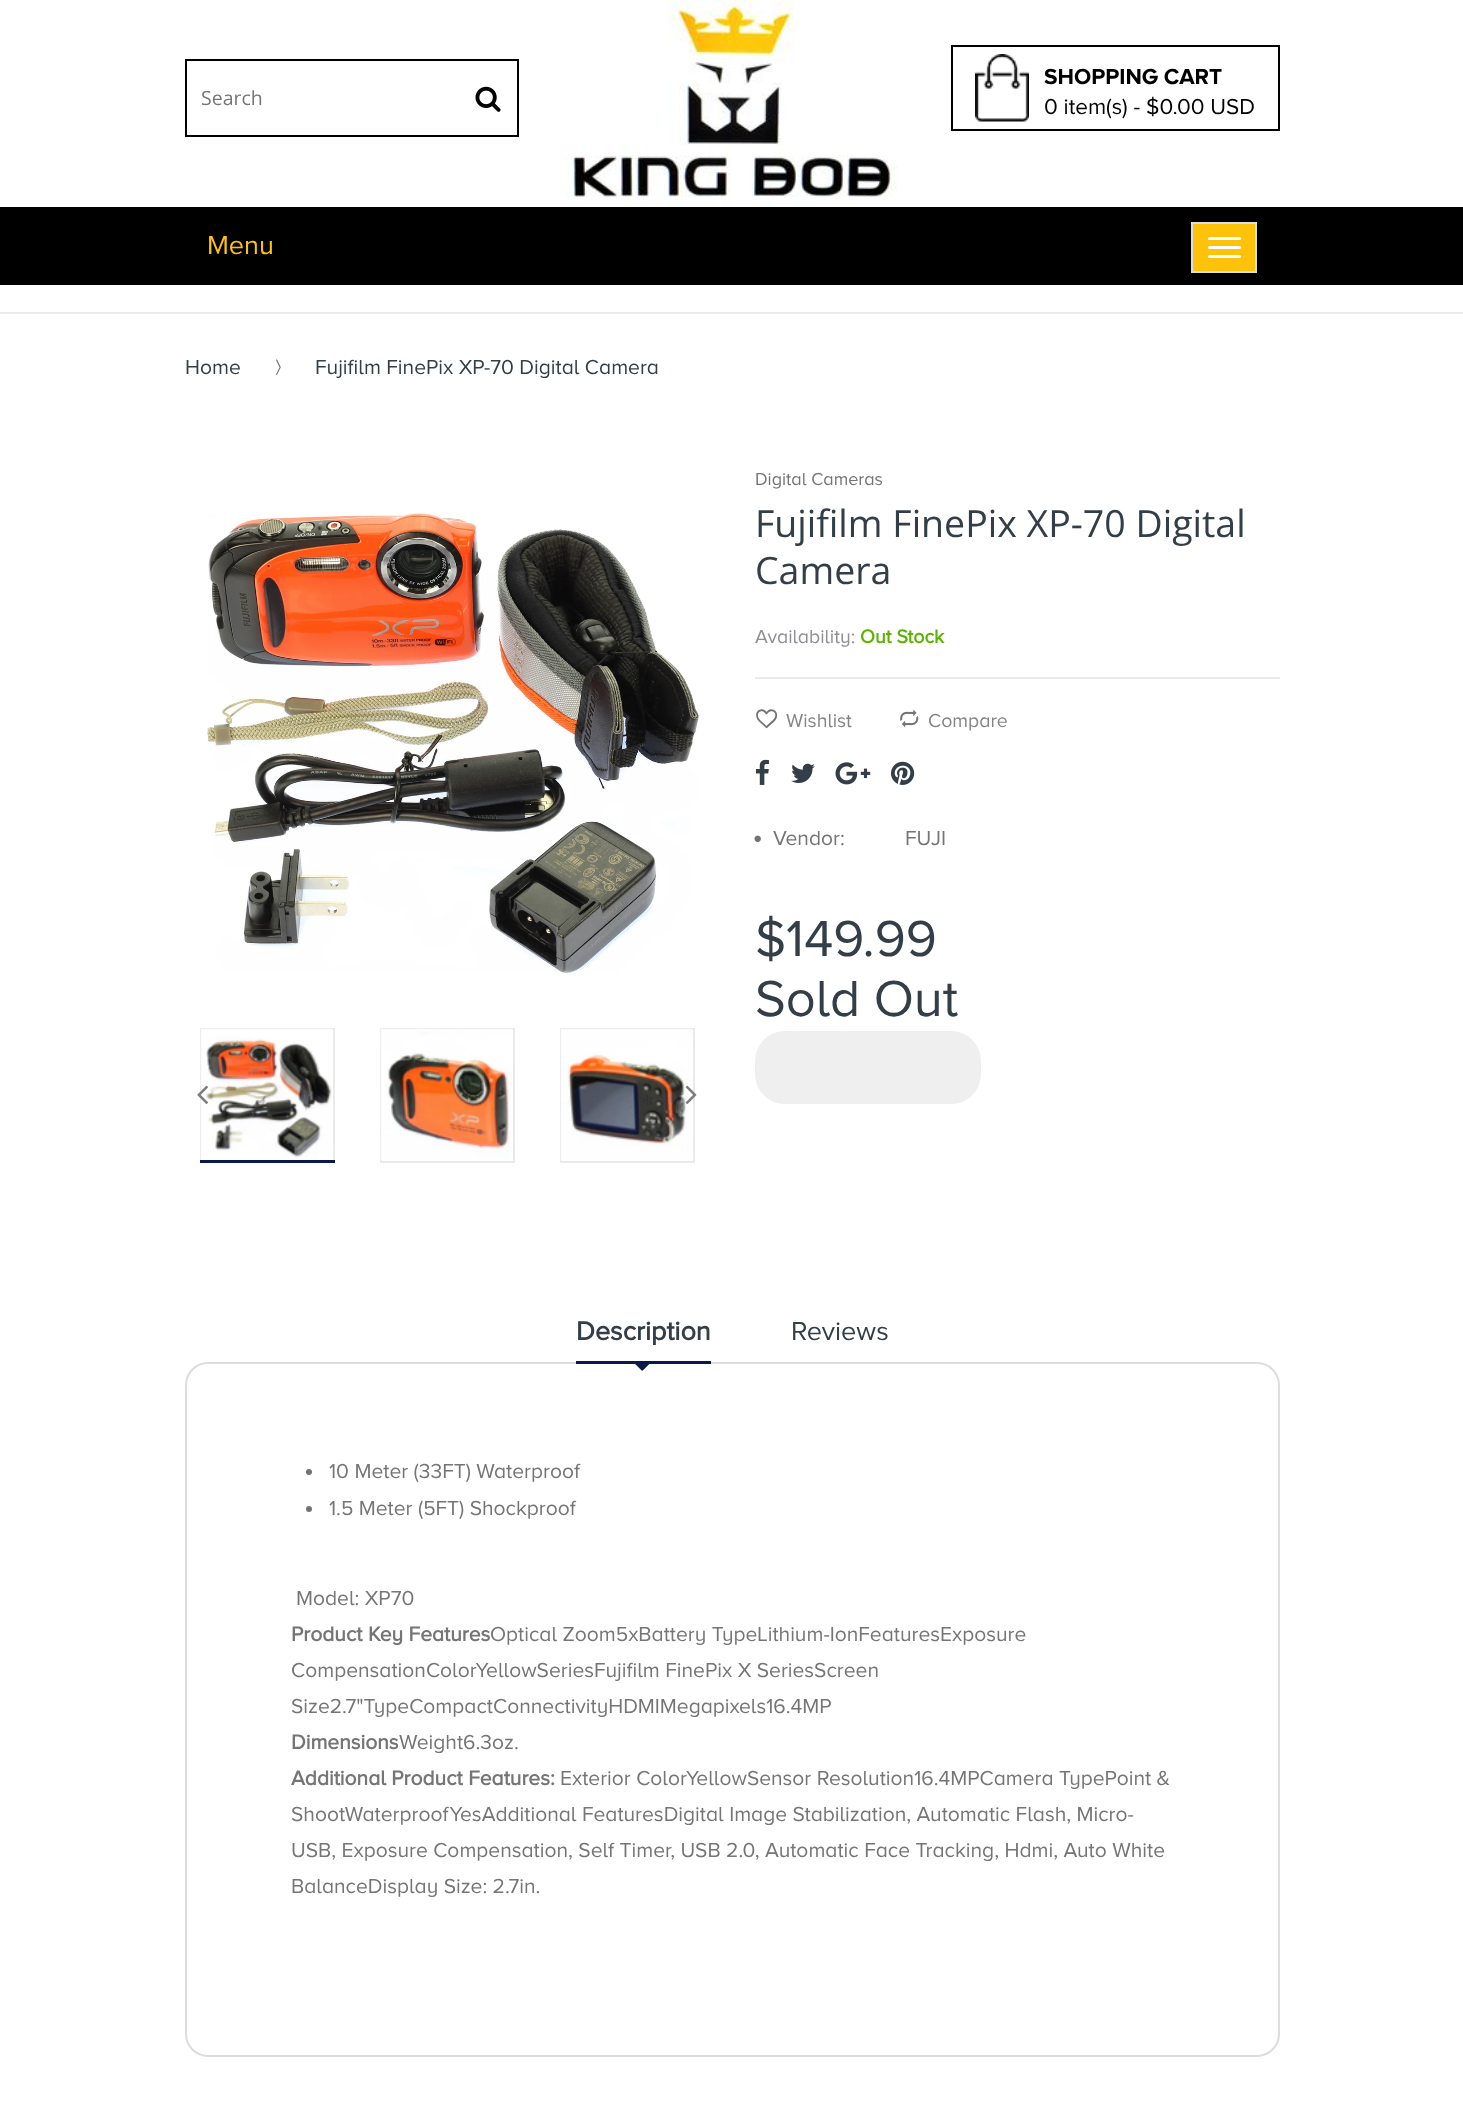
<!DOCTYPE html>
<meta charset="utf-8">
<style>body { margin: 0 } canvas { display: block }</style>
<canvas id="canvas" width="1463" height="2109"></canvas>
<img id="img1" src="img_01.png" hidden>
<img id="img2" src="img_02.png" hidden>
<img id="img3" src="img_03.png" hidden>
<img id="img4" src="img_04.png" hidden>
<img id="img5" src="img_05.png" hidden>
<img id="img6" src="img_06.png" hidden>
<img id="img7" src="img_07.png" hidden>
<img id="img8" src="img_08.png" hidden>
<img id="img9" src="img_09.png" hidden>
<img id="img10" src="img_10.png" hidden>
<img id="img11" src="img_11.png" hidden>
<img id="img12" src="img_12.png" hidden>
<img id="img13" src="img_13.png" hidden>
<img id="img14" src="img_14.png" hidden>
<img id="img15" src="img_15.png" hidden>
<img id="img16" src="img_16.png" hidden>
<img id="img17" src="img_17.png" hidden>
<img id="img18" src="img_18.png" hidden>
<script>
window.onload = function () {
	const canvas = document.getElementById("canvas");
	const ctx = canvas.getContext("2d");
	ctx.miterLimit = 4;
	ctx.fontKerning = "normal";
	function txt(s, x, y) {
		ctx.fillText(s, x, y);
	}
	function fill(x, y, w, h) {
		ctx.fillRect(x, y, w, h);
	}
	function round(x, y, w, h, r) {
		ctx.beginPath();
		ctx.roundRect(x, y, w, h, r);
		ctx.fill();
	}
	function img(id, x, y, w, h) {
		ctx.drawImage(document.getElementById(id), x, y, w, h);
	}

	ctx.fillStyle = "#FFFFFF";
	fill(0, 0, 1463, 2109);
	ctx.strokeStyle = "#000000";
	ctx.lineWidth = 2;
	ctx.strokeRect(186, 60, 332, 76);
	img("img1", 475, 86, 26, 26);
	img("img2", 564, 0, 334, 207);
	ctx.strokeRect(952, 46, 327, 84);
	img("img3", 975, 54, 54, 68);
	ctx.fillStyle = "#000000";
	fill(0, 207, 1463, 78);
	ctx.fillStyle = "#FFC20B";
	ctx.beginPath();
	ctx.rect(1192, 223, 64, 49);
	ctx.fill();
	ctx.strokeStyle = "#DDDDDD";
	ctx.stroke();
	ctx.fillStyle = "#FFFFFF";
	round(1208, 237, 33, 3, 1.5);
	round(1208, 246, 33, 3, 1.5);
	round(1208, 255, 33, 3, 1.5);
	ctx.fillStyle = "#EAEAEA";
	fill(0, 312, 1463, 2);
	img("img4", 276, 359, 5, 17);
	img("img5", 207, 513, 493, 461);
	ctx.strokeStyle = "#EAEAEA";
	ctx.strokeRect(201, 1029, 133, 133);
	img("img6", 200, 1028, 133, 132);
	ctx.fillStyle = "#0B194A";
	fill(200, 1160, 135, 3);
	ctx.strokeRect(381, 1029, 133, 133);
	img("img7", 380, 1028, 133, 133);
	ctx.strokeRect(561, 1029, 133, 133);
	img("img8", 560, 1028, 133, 133);
	img("img9", 197, 1085, 11, 19);
	img("img10", 685, 1085, 12, 19);
	ctx.fillStyle = "#EAEAEA";
	fill(755, 677, 525, 2);
	img("img11", 756, 709, 22, 20);
	img("img12", 900, 709, 19, 19);
	img("img13", 755, 759, 14, 26);
	img("img14", 791, 763, 24, 20);
	img("img15", 835, 762, 36, 23);
	img("img16", 891, 761, 24, 24);
	img("img17", 754, 835, 7, 7);
	ctx.fillStyle = "#EFEFEF";
	ctx.beginPath();
	ctx.roundRect(756, 1032, 224, 71, 29);
	ctx.fill();
	ctx.strokeStyle = "#EFEFEF";
	ctx.stroke();
	ctx.beginPath();
	ctx.roundRect(186, 1363, 1093, 693, 22);
	ctx.strokeStyle = "#DDDDDD";
	ctx.stroke();
	ctx.fillStyle = "#0B194A";
	fill(576, 1361, 135, 3);
	img("img18", 635, 1364, 15, 7);
	ctx.fillStyle = "#747474";
	ctx.beginPath();
	ctx.arc(309, 1472, 3, 0, Math.PI * 2);
	ctx.fill();
	ctx.beginPath();
	ctx.arc(309, 1509, 3, 0, Math.PI * 2);
	ctx.fill();
	ctx.font = "19.5px Open Sans";
	ctx.fillStyle = "#757575";
	txt("Search", 201, 105);
	ctx.font = "bold 22.5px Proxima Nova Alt";
	ctx.fillStyle = "#000000";
	txt("SHOPPING CART", 1044, 84);
	ctx.font = "22.5px Proxima Nova Alt";
	txt("0 item(s) - $0.00 USD", 1044, 114);
	ctx.font = "27px Proxima Nova Alt";
	ctx.fillStyle = "#FFC20B";
	txt("Menu", 207, 254);
	ctx.font = "21px Proxima Nova Alt";
	ctx.fillStyle = "#333E48";
	txt("Home", 185, 374);
	txt("Fujifilm FinePix XP-70 Digital Camera", 315, 374);
	ctx.font = "18px Proxima Nova Alt";
	ctx.fillStyle = "#757575";
	txt("Digital Cameras", 755, 485);
	ctx.font = "37.5px Open Sans";
	ctx.fillStyle = "#333E48";
	txt("Fujifilm FinePix XP-70 Digital", 755, 537);
	txt("Camera", 755, 584);
	ctx.font = "19.5px Proxima Nova Alt";
	ctx.fillStyle = "#8F8E94";
	txt("Availability:", 755, 643);
	ctx.font = "bold 19.5px 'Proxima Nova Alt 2'";
	ctx.fillStyle = "#5BB300";
	txt("Out Stock", 860, 643);
	ctx.font = "19.5px Proxima Nova Alt";
	ctx.fillStyle = "#848484";
	txt("Wishlist", 786, 727);
	txt("Compare", 928, 727);
	ctx.font = "21px Proxima Nova Alt";
	ctx.fillStyle = "#757575";
	txt("Vendor:", 773, 845);
	txt("FUJI", 905, 845);
	ctx.font = "52.5px Proxima Nova Alt";
	ctx.fillStyle = "#333E48";
	txt("$149.99", 755, 956);
	txt("Sold Out", 755, 1016);
	ctx.font = "bold 27px 'Proxima Nova Alt 2'";
	txt("Description", 576, 1340);
	ctx.font = "27px Proxima Nova Alt";
	txt("Reviews", 791, 1340);
	ctx.font = "21px Proxima Nova Alt";
	ctx.fillStyle = "#757575";
	txt("10 Meter (33FT) Waterproof", 329, 1478);
	txt("1.5 Meter (5FT) Shockproof", 329, 1515);
	txt("Model: XP70", 296, 1605);
	ctx.font = "bold 21px 'Proxima Nova Alt 2'";
	txt("Product Key Features", 291, 1641);
	ctx.font = "21px Proxima Nova Alt";
	txt("Optical Zoom5xBattery TypeLithium-IonFeaturesExposure", 490, 1641);
	txt("CompensationColorYellowSeriesFujifilm FinePix X SeriesScreen", 291, 1677);
	txt("Size2.7\"TypeCompactConnectivityHDMIMegapixels16.4MP", 291, 1713);
	ctx.font = "bold 21px 'Proxima Nova Alt 2'";
	txt("Dimensions", 291, 1749);
	ctx.font = "21px Proxima Nova Alt";
	txt("Weight6.3oz.", 399, 1749);
	ctx.font = "bold 21px 'Proxima Nova Alt 2'";
	txt("Additional Product Features:", 291, 1785);
	ctx.font = "21px Proxima Nova Alt";
	txt("Exterior ColorYellowSensor Resolution16.4MPCamera TypePoint &", 560, 1785);
	txt("ShootWaterproofYesAdditional FeaturesDigital Image Stabilization, Automatic Flash, Micro-", 291, 1821);
	txt("USB, Exposure Compensation, Self Timer, USB 2.0, Automatic Face Tracking, Hdmi, Auto White", 291, 1857);
	txt("BalanceDisplay Size: 2.7in.", 291, 1893);
};
</script>
